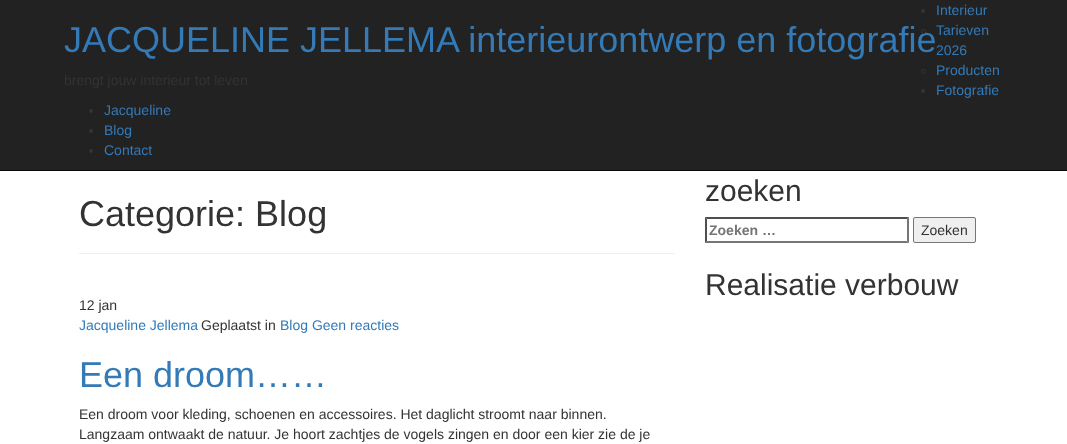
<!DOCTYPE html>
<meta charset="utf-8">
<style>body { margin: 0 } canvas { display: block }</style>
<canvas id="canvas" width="1067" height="444"></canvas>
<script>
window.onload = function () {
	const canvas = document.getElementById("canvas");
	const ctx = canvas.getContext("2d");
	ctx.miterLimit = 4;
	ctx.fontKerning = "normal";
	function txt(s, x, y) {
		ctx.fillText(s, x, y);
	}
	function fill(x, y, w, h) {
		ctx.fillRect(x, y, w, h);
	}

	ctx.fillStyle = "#FFFFFF";
	fill(0, 0, 1067, 444);
	ctx.fillStyle = "#222222";
	fill(0, 0, 1067, 170);
	ctx.fillStyle = "#080808";
	fill(0, 170, 1067, 1);
	ctx.fillStyle = "#333333";
	ctx.beginPath();
	ctx.arc(923, 11, 2, 0, Math.PI * 2);
	ctx.fill();
	ctx.beginPath();
	ctx.arc(923.5, 71.5, 2, 0, Math.PI * 2);
	ctx.strokeStyle = "#333333";
	ctx.stroke();
	ctx.beginPath();
	ctx.arc(923, 91, 2, 0, Math.PI * 2);
	ctx.fill();
	ctx.beginPath();
	ctx.arc(91, 111, 2, 0, Math.PI * 2);
	ctx.fill();
	ctx.beginPath();
	ctx.arc(91, 131, 2, 0, Math.PI * 2);
	ctx.fill();
	ctx.beginPath();
	ctx.arc(91, 151, 2, 0, Math.PI * 2);
	ctx.fill();
	ctx.fillStyle = "#EEEEEE";
	fill(79, 253, 596, 1);
	ctx.fillStyle = "#4F4F4F";
	ctx.beginPath();
	ctx.moveTo(705, 217);
	ctx.lineTo(909, 217);
	ctx.lineTo(907, 219);
	ctx.lineTo(707, 219);
	ctx.closePath();
	ctx.fill();
	ctx.fillStyle = "#767676";
	ctx.beginPath();
	ctx.moveTo(909, 217);
	ctx.lineTo(909, 243);
	ctx.lineTo(907, 241);
	ctx.lineTo(907, 219);
	ctx.closePath();
	ctx.fill();
	ctx.beginPath();
	ctx.moveTo(909, 243);
	ctx.lineTo(705, 243);
	ctx.lineTo(707, 241);
	ctx.lineTo(907, 241);
	ctx.closePath();
	ctx.fill();
	ctx.fillStyle = "#4F4F4F";
	ctx.beginPath();
	ctx.moveTo(705, 243);
	ctx.lineTo(705, 217);
	ctx.lineTo(707, 219);
	ctx.lineTo(707, 241);
	ctx.closePath();
	ctx.fill();
	ctx.fillStyle = "#EFEFEF";
	ctx.beginPath();
	ctx.roundRect(913.5, 217.5, 62, 25, 1.5);
	ctx.fill();
	ctx.strokeStyle = "#767676";
	ctx.stroke();
	ctx.font = "14px Liberation Sans";
	ctx.fillStyle = "#337AB7";
	txt("Interieur", 936, 15);
	txt("Tarieven", 936, 35);
	txt("2026", 936, 55);
	txt("Producten", 936, 75);
	txt("Fotografie", 936, 95);
	txt("Jacqueline", 104, 115);
	txt("Blog", 104, 135);
	txt("Contact", 104, 155);
	ctx.font = "36px Liberation Sans";
	txt("JACQUELINE JELLEMA interieurontwerp en fotografie", 64, 52);
	ctx.beginPath();
	ctx.arc(923.5, 31.5, 2, 0, Math.PI * 2);
	ctx.strokeStyle = "#333333";
	ctx.stroke();
	ctx.font = "14px Liberation Sans";
	ctx.fillStyle = "#333333";
	txt("brengt jouw interieur tot leven", 64, 85);
	ctx.font = "36px Liberation Sans";
	txt("Categorie: Blog", 79, 226);
	ctx.font = "14px Liberation Sans";
	txt("12 jan", 79, 310);
	ctx.fillStyle = "#337AB7";
	txt("Jacqueline Jellema", 79, 330);
	ctx.fillStyle = "#333333";
	txt("Geplaatst in", 201, 330);
	ctx.fillStyle = "#337AB7";
	txt("Blog Geen reacties", 280, 330);
	ctx.font = "36px Liberation Sans";
	txt("Een droom……", 79, 387);
	ctx.font = "14px Liberation Sans";
	ctx.fillStyle = "#333333";
	txt("Een droom voor kleding, schoenen en accessoires. Het daglicht stroomt naar binnen.", 79, 419);
	txt("Langzaam ontwaakt de natuur. Je hoort zachtjes de vogels zingen en door een kier zie de je", 79, 439);
	ctx.font = "30px Liberation Sans";
	txt("zoeken", 705, 201);
	ctx.font = "bold 14px Liberation Sans";
	ctx.fillStyle = "#757575";
	txt("Zoeken …", 709, 235);
	ctx.font = "14px Liberation Sans";
	ctx.fillStyle = "#333333";
	txt("Zoeken", 921, 235);
	ctx.font = "30px Liberation Sans";
	txt("Realisatie verbouw", 705, 295);
};
</script>
